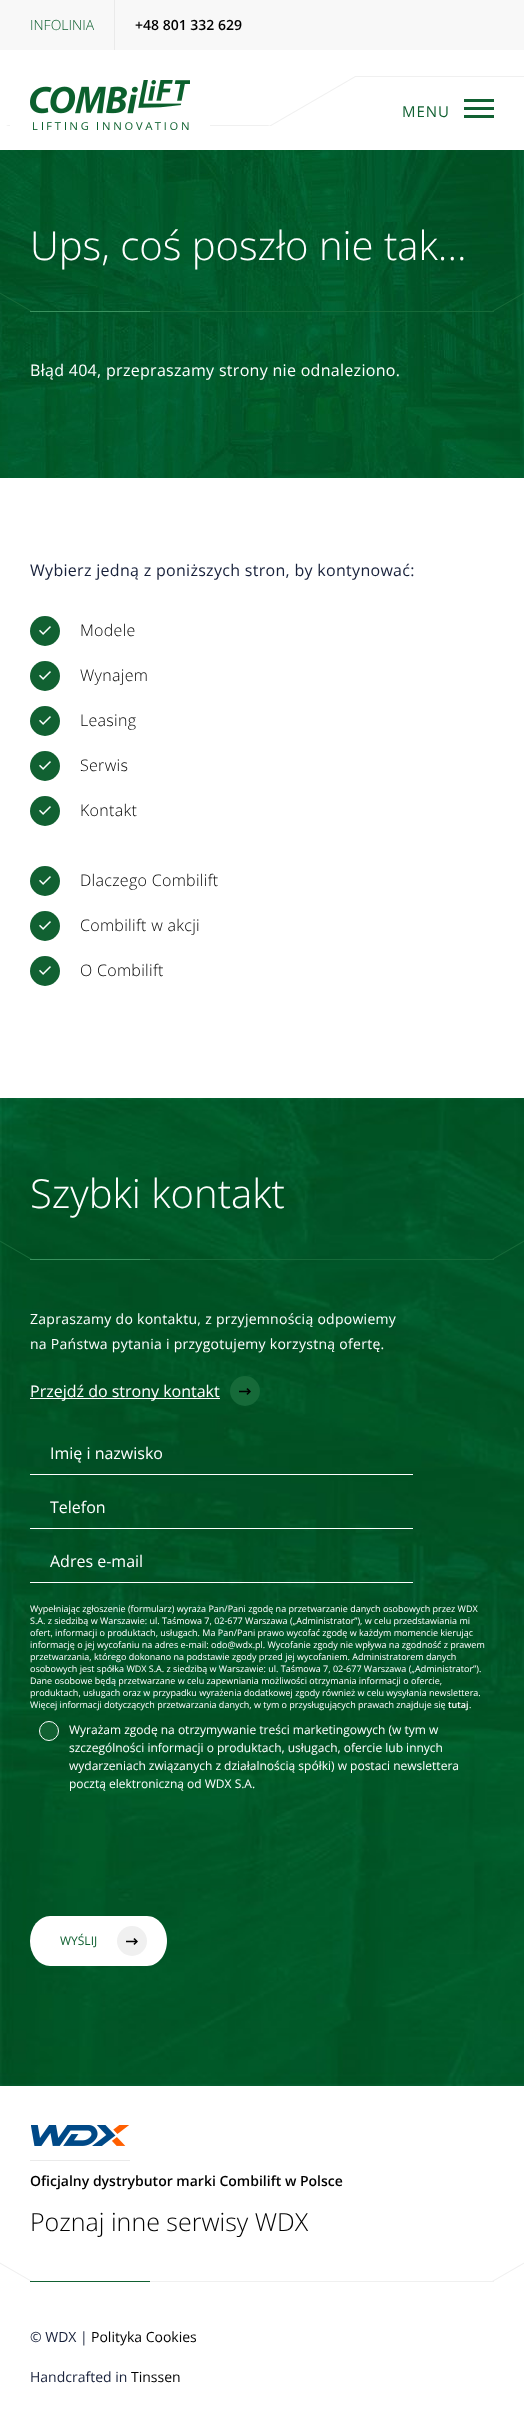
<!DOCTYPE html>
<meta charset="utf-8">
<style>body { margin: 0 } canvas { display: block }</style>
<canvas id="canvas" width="524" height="2427"></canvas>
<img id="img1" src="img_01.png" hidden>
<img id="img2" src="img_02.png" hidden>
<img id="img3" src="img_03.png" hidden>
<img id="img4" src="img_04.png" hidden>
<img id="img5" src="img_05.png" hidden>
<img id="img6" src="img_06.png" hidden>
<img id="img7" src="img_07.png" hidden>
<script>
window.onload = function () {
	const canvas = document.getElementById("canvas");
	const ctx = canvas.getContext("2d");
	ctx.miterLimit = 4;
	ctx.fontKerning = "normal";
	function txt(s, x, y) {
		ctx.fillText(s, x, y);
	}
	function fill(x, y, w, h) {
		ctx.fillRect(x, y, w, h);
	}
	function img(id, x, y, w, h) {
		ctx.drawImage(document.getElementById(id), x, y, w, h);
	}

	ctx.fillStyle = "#FFFFFF";
	fill(0, 0, 524, 2427);
	ctx.fillStyle = "#F8F8F8";
	fill(0, 0, 524, 50);
	ctx.fillStyle = "#EAEAEA";
	fill(114, 0, 1, 50);
	ctx.fillStyle = "#F0F0F0";
	ctx.beginPath();
	ctx.moveTo(6, 125);
	ctx.lineTo(268, 125);
	ctx.lineTo(270, 126);
	ctx.lineTo(8, 126);
	ctx.closePath();
	ctx.fill();
	ctx.save();
	ctx.beginPath();
	ctx.rect(0, 76, 524, 50);
	ctx.clip();
	ctx.beginPath();
	ctx.moveTo(357, 75);
	ctx.lineTo(359, 75);
	ctx.lineTo(271, 126);
	ctx.lineTo(269, 126);
	ctx.closePath();
	ctx.fill();
	ctx.restore();
	fill(355, 76, 169, 1);
	ctx.fillStyle = "#FFFFFF";
	fill(10, 125, 200, 1);
	img("img1", 30, 80, 160, 50);
	ctx.fillStyle = "#116132";
	fill(464, 107, 30, 3);
	fill(464, 99, 30, 3);
	fill(464, 115, 30, 3);
	img("img2", 0, 150, 524, 328);
	ctx.fillStyle = "#166A39";
	fill(150, 311, 344, 1);
	ctx.beginPath();
	ctx.moveTo(-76, 250);
	ctx.lineTo(-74, 250);
	ctx.lineTo(32, 311);
	ctx.lineTo(30, 311);
	ctx.closePath();
	ctx.fill();
	ctx.beginPath();
	ctx.moveTo(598, 250);
	ctx.lineTo(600, 250);
	ctx.lineTo(494, 311);
	ctx.lineTo(492, 311);
	ctx.closePath();
	ctx.fill();
	ctx.fillStyle = "#3A925F";
	fill(30, 311, 120, 1);
	ctx.fillStyle = "#116132";
	ctx.beginPath();
	ctx.arc(45, 631, 15, 0, Math.PI * 2);
	ctx.fill();
	img("img3", 39, 626, 12, 9);
	ctx.beginPath();
	ctx.arc(45, 676, 15, 0, Math.PI * 2);
	ctx.fill();
	img("img3", 39, 671, 12, 9);
	ctx.beginPath();
	ctx.arc(45, 721, 15, 0, Math.PI * 2);
	ctx.fill();
	img("img3", 39, 716, 12, 9);
	ctx.beginPath();
	ctx.arc(45, 766, 15, 0, Math.PI * 2);
	ctx.fill();
	img("img3", 39, 761, 12, 9);
	ctx.beginPath();
	ctx.arc(45, 811, 15, 0, Math.PI * 2);
	ctx.fill();
	img("img3", 39, 806, 12, 9);
	ctx.beginPath();
	ctx.arc(45, 881, 15, 0, Math.PI * 2);
	ctx.fill();
	img("img3", 39, 876, 12, 9);
	ctx.beginPath();
	ctx.arc(45, 926, 15, 0, Math.PI * 2);
	ctx.fill();
	img("img3", 39, 921, 12, 9);
	ctx.beginPath();
	ctx.arc(45, 971, 15, 0, Math.PI * 2);
	ctx.fill();
	img("img3", 39, 966, 12, 9);
	img("img4", 0, 1098, 524, 988);
	ctx.fillStyle = "#166A39";
	fill(150, 1259, 344, 1);
	ctx.beginPath();
	ctx.moveTo(-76, 1198);
	ctx.lineTo(-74, 1198);
	ctx.lineTo(32, 1259);
	ctx.lineTo(30, 1259);
	ctx.closePath();
	ctx.fill();
	ctx.beginPath();
	ctx.moveTo(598, 1198);
	ctx.lineTo(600, 1198);
	ctx.lineTo(494, 1259);
	ctx.lineTo(492, 1259);
	ctx.closePath();
	ctx.fill();
	ctx.fillStyle = "#3A925F";
	fill(30, 1259, 120, 1);
	ctx.fillStyle = "#FFFFFF";
	fill(30, 1398, 190, 1);
	ctx.fillStyle = "#166A39";
	ctx.beginPath();
	ctx.arc(245, 1391, 15, 0, Math.PI * 2);
	ctx.fill();
	img("img5", 239, 1388, 12, 7);
	ctx.fillStyle = "#FFFFFF";
	fill(30, 1474, 383, 1);
	fill(30, 1528, 383, 1);
	fill(30, 1582, 383, 1);
	ctx.fillStyle = "#116132";
	ctx.beginPath();
	ctx.arc(49, 1731, 9.5, 0, Math.PI * 2);
	ctx.fill();
	ctx.strokeStyle = "#FFFFFF";
	ctx.stroke();
	ctx.fillStyle = "#FFFFFF";
	fill(50, 1916, 77, 50);
	ctx.beginPath();
	ctx.ellipse(50, 1941, 20, 25, 0, 0, Math.PI * 2);
	ctx.fill();
	ctx.beginPath();
	ctx.moveTo(127, 1916);
	ctx.lineTo(147, 1916);
	ctx.bezierCurveTo(158, 1916, 167, 1927, 167, 1941);
	ctx.bezierCurveTo(167, 1955, 158, 1966, 147, 1966);
	ctx.lineTo(127, 1966);
	ctx.closePath();
	ctx.fill();
	ctx.fillStyle = "#F0F0F0";
	ctx.beginPath();
	ctx.arc(132, 1941, 15, 0, Math.PI * 2);
	ctx.fill();
	img("img6", 126, 1938, 12, 7);
	fill(150, 2281, 344, 1);
	ctx.fillStyle = "#EAEAEA";
	fill(30, 2160, 100, 1);
	img("img7", 31, 2125, 98, 21);
	ctx.fillStyle = "#116132";
	fill(30, 2281, 120, 1);
	ctx.fillStyle = "#F0F0F0";
	ctx.beginPath();
	ctx.moveTo(-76, 2220);
	ctx.lineTo(-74, 2220);
	ctx.lineTo(32, 2281);
	ctx.lineTo(30, 2281);
	ctx.closePath();
	ctx.fill();
	ctx.beginPath();
	ctx.moveTo(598, 2220);
	ctx.lineTo(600, 2220);
	ctx.lineTo(494, 2281);
	ctx.lineTo(492, 2281);
	ctx.closePath();
	ctx.fill();
	ctx.font = "300 14px Open Sans";
	ctx.fillStyle = "#116132";
	txt("INFOLINIA", 30, 30);
	ctx.font = "600 14px Open Sans";
	ctx.fillStyle = "#000000";
	txt("+48 801 332 629", 135, 30);
	ctx.letterSpacing = "1px";
	ctx.font = "15px Open Sans";
	ctx.fillStyle = "#116132";
	txt("MENU", 402, 117);
	ctx.letterSpacing = "0px";
	ctx.font = "300 40px Open Sans";
	ctx.fillStyle = "#FFFFFF";
	txt("Ups, coś poszło nie tak...", 30, 260);
	ctx.letterSpacing = "0.3px";
	ctx.font = "16px Open Sans";
	txt("Błąd 404, przepraszamy strony nie odnaleziono.", 30, 376);
	ctx.fillStyle = "#17203A";
	txt("Wybierz jedną z poniższych stron, by kontynować:", 30, 576);
	ctx.font = "300 16px Open Sans";
	ctx.fillStyle = "#000000";
	txt("Modele", 80, 636);
	txt("Wynajem", 80, 681);
	txt("Leasing", 80, 726);
	txt("Serwis", 80, 771);
	txt("Kontakt", 80, 816);
	txt("Dlaczego Combilift", 80, 886);
	txt("Combilift w akcji", 80, 931);
	txt("O Combilift", 80, 976);
	ctx.letterSpacing = "0px";
	ctx.font = "300 40px Open Sans";
	ctx.fillStyle = "#FFFFFF";
	txt("Szybki kontakt", 30, 1208);
	ctx.letterSpacing = "0.28px";
	ctx.font = "14px Open Sans";
	txt("Zapraszamy do kontaktu, z przyjemnością odpowiemy", 30, 1324);
	txt("na Państwa pytania i przygotujemy korzystną ofertę.", 30, 1349);
	ctx.letterSpacing = "0px";
	ctx.font = "16px Open Sans";
	txt("Przejdź do strony kontakt", 30, 1397);
	txt("Imię i nazwisko", 50, 1459);
	txt("Telefon", 50, 1513);
	txt("Adres e-mail", 50, 1567);
	ctx.font = "9px Open Sans";
	txt("Wypełniając zgłoszenie (formularz) wyraża Pan/Pani zgodę na przetwarzanie danych osobowych przez WDX", 30, 1612);
	txt("S.A. z siedzibą w Warszawie: ul. Taśmowa 7, 02-677 Warszawa („Administrator”), w celu przedstawiania mi", 30, 1624);
	txt("ofert, informacji o produktach, usługach. Ma Pan/Pani prawo wycofać zgodę w każdym momencie kierując", 30, 1636);
	txt("informację o jej wycofaniu na adres e-mail: odo@wdx.pl. Wycofanie zgody nie wpływa na zgodność z prawem", 30, 1648);
	txt("przetwarzania, którego dokonano na podstawie zgody przed jej wycofaniem. Administratorem danych", 30, 1660);
	txt("osobowych jest spółka WDX S.A. z siedzibą w Warszawie: ul. Taśmowa 7, 02-677 Warszawa („Administrator”).", 30, 1672);
	txt("Dane osobowe będą przetwarzane w celu zapewniania możliwości otrzymania informacji o ofercie,", 30, 1684);
	txt("produktach, usługach oraz w przypadku wyrażenia dodatkowej zgody również w celu wysyłania newslettera.", 30, 1696);
	txt("Więcej informacji dotyczących przetwarzania danych, w tym o przysługujących prawach znajduje się", 30, 1708);
	ctx.font = "600 9px Open Sans";
	txt("tutaj", 448, 1708);
	ctx.font = "9px Open Sans";
	txt(".", 469, 1708);
	ctx.font = "12px Open Sans";
	txt("Wyrażam zgodę na otrzymywanie treści marketingowych (w tym w", 69, 1734);
	txt("szczególności informacji o produktach, usługach, ofercie lub innych", 69, 1752);
	txt("wydarzeniach związanych z działalnością spółki) w postaci newslettera", 69, 1770);
	txt("pocztą elektroniczną od WDX S.A.", 69, 1788);
	ctx.fillStyle = "#116132";
	txt("WYŚLIJ", 60, 1945);
	ctx.font = "600 14px Open Sans";
	ctx.fillStyle = "#000000";
	txt("Oficjalny dystrybutor marki Combilift w Polsce", 30, 2186);
	ctx.font = "300 25px Open Sans";
	txt("Poznaj inne serwisy WDX", 30, 2231);
	ctx.font = "14px Open Sans";
	ctx.fillStyle = "#17203A";
	txt("© WDX |", 30, 2342);
	ctx.fillStyle = "#000000";
	txt("Polityka Cookies", 91, 2342);
	ctx.fillStyle = "#17203A";
	txt("Handcrafted in", 30, 2382);
	ctx.fillStyle = "#000000";
	txt("Tinssen", 131, 2382);
};
</script>
